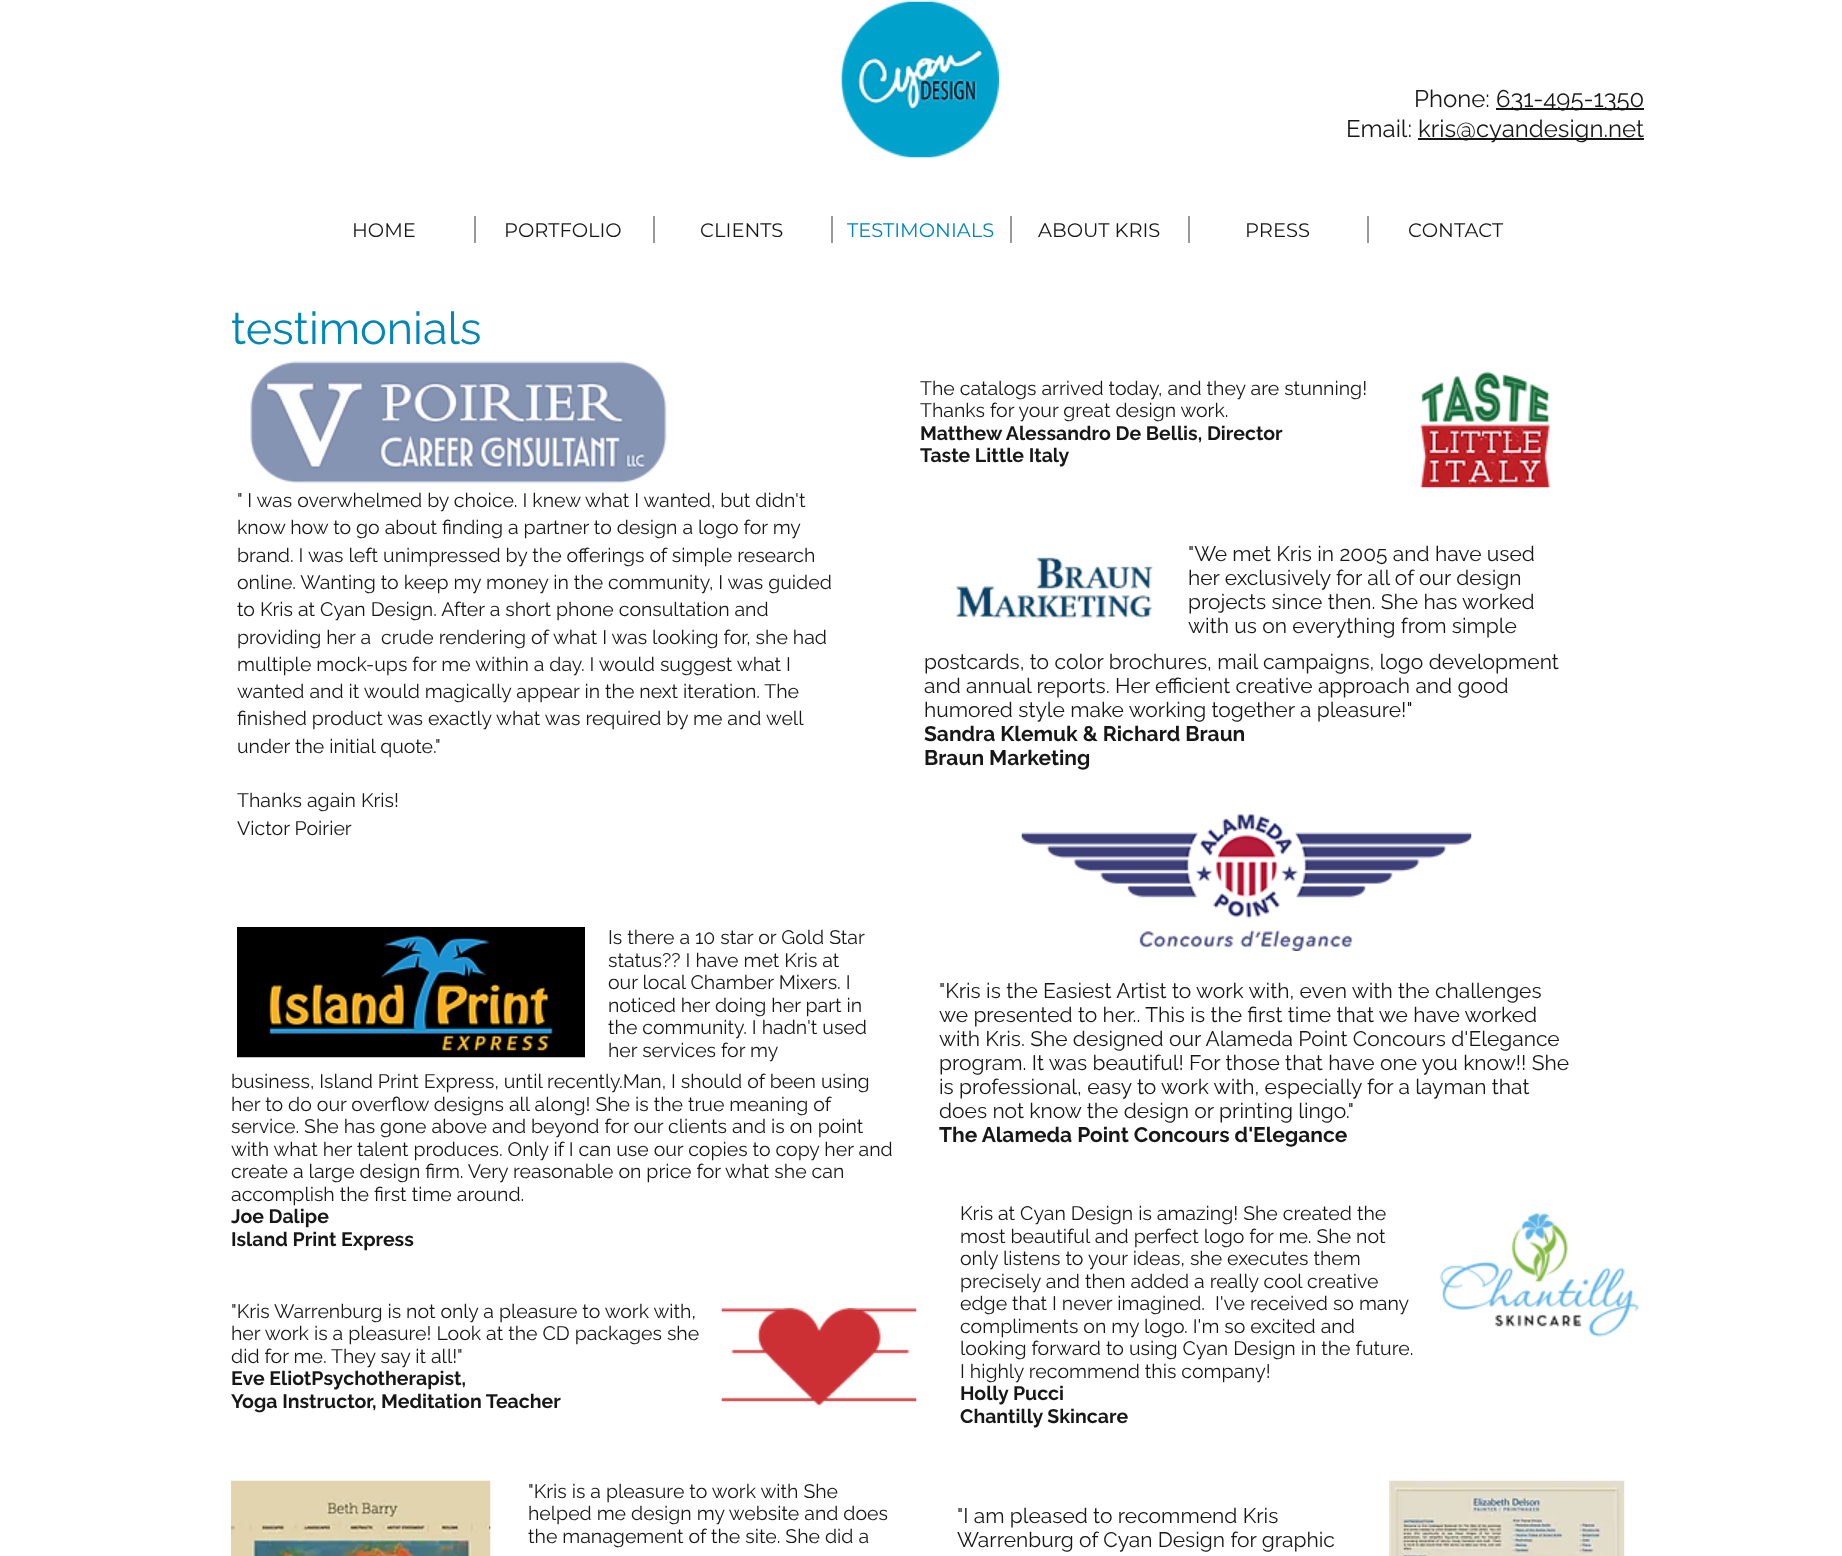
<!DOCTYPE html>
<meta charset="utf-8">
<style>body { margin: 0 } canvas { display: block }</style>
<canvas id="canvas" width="1842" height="1556"></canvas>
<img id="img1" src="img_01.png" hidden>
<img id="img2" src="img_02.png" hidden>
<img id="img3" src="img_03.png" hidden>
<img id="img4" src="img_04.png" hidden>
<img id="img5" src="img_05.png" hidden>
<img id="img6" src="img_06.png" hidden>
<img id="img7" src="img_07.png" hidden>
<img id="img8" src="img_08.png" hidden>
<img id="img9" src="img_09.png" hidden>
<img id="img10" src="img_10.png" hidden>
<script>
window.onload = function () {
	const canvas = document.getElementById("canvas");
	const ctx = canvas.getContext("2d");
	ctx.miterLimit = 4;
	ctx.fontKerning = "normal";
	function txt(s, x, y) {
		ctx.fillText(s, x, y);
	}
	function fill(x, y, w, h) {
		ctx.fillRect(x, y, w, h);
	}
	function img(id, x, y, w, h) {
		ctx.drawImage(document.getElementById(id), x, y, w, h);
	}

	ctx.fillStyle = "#FFFFFF";
	fill(0, 0, 1842, 1556);
	img("img1", 841, 1, 158, 157);
	ctx.fillStyle = "#181717";
	fill(1496, 108, 148, 2);
	fill(1418, 138, 226, 2);
	ctx.fillStyle = "#999999";
	fill(474, 216, 2, 27);
	fill(653, 216, 2, 27);
	fill(831, 216, 2, 27);
	fill(1010, 216, 2, 27);
	fill(1188, 216, 2, 27);
	fill(1367, 216, 2, 27);
	img("img2", 250, 361, 417, 123);
	img("img3", 1420, 371, 130, 117);
	img("img4", 955, 557, 198, 62);
	img("img5", 1021, 814, 451, 137);
	img("img6", 237, 927, 348, 131);
	img("img7", 1439, 1213, 200, 124);
	img("img8", 721, 1308, 196, 98);
	img("img9", 231, 1480, 260, 76);
	img("img10", 1389, 1480, 236, 76);
	ctx.font = "24px Raleway";
	ctx.fillStyle = "#181717";
	txt("Phone:", 1414, 107);
	txt("631-495-1350", 1496, 107);
	txt("Email:", 1346, 137);
	txt("kris@cyandesign.net", 1418, 137);
	ctx.font = "19.5px Montserrat";
	txt("HOME", 352, 237);
	txt("PORTFOLIO", 504, 237);
	txt("CLIENTS", 700, 237);
	ctx.fillStyle = "#0087B8";
	txt("TESTIMONIALS", 847, 237);
	ctx.fillStyle = "#181717";
	txt("ABOUT KRIS", 1038, 237);
	txt("PRESS", 1245, 237);
	txt("CONTACT", 1408, 237);
	ctx.font = "45px Raleway";
	ctx.fillStyle = "#0087B8";
	txt("testimonials", 231, 344);
	ctx.font = "19.5px Raleway";
	ctx.fillStyle = "#181717";
	txt("The catalogs arrived today, and they are stunning!", 920, 395);
	txt("Thanks for your great design work.", 920, 417);
	ctx.font = "bold 19.5px Raleway";
	txt("Matthew Alessandro De Bellis, Director", 920, 440);
	txt("Taste Little Italy", 920, 462);
	ctx.font = "19.5px Raleway";
	txt("\" I was overwhelmed by choice. I knew what I wanted, but didn't", 237, 507);
	txt("know how to go about finding a partner to design a logo for my", 237, 534);
	txt("brand. I was left unimpressed by the offerings of simple research", 237, 562);
	txt("online. Wanting to keep my money in the community, I was guided", 237, 589);
	txt("to Kris at Cyan Design. After a short phone consultation and", 237, 616);
	txt("providing her a  crude rendering of what I was looking for, she had", 237, 644);
	txt("multiple mock-ups for me within a day. I would suggest what I", 237, 671);
	txt("wanted and it would magically appear in the next iteration. The", 237, 698);
	txt("finished product was exactly what was required by me and well", 237, 725);
	txt("under the initial quote.\"", 237, 753);
	txt("Thanks again Kris!", 237, 807);
	txt("Victor Poirier", 237, 835);
	ctx.font = "21px Raleway";
	txt("\"We met Kris in 2005 and have used", 1188, 561);
	txt("her exclusively for all of our design", 1188, 585);
	txt("projects since then. She has worked", 1188, 609);
	txt("with us on everything from simple", 1188, 633);
	txt("postcards, to color brochures, mail campaigns, logo development", 924, 669);
	txt("and annual reports. Her efficient creative approach and good", 924, 693);
	txt("humored style make working together a pleasure!\"", 924, 717);
	ctx.font = "bold 21px Raleway";
	txt("Sandra Klemuk & Richard Braun", 924, 741);
	txt("Braun Marketing", 924, 765);
	ctx.font = "19.5px Raleway";
	txt("Is there a 10 star or Gold Star", 608, 944);
	txt("status?? I have met Kris at", 608, 967);
	txt("our local Chamber Mixers. I", 608, 989);
	txt("noticed her doing her part in", 608, 1012);
	txt("the community. I hadn't used", 608, 1034);
	txt("her services for my", 608, 1057);
	ctx.font = "21px Raleway";
	txt("\"Kris is the Easiest Artist to work with, even with the challenges", 939, 998);
	txt("we presented to her.. This is the first time that we have worked", 939, 1022);
	txt("with Kris. She designed our Alameda Point Concours d'Elegance", 939, 1046);
	txt("program. It was beautiful! For those that have one you know!! She", 939, 1070);
	txt("is professional, easy to work with, especially for a layman that", 939, 1094);
	txt("does not know the design or printing lingo.\"", 939, 1118);
	ctx.font = "bold 21px Raleway";
	txt("The Alameda Point Concours d'Elegance", 939, 1142);
	ctx.font = "19.5px Raleway";
	txt("business, Island Print Express, until recently.Man, I should of been using", 231, 1088);
	txt("her to do our overflow designs all along! She is the true meaning of", 231, 1111);
	txt("service. She has gone above and beyond for our clients and is on point", 231, 1133);
	txt("with what her talent produces. Only if I can use our copies to copy her and", 231, 1156);
	txt("create a large design firm. Very reasonable on price for what she can", 231, 1178);
	txt("accomplish the first time around.", 231, 1201);
	ctx.font = "bold 19.5px Raleway";
	txt("Joe Dalipe", 231, 1223);
	txt("Island Print Express", 231, 1246);
	ctx.font = "19.5px Raleway";
	txt("Kris at Cyan Design is amazing! She created the", 960, 1220);
	txt("most beautiful and perfect logo for me. She not", 960, 1243);
	txt("only listens to your ideas, she executes them", 960, 1265);
	txt("precisely and then added a really cool creative", 960, 1288);
	txt("edge that I never imagined.  I've received so many", 960, 1310);
	txt("compliments on my logo. I'm so excited and", 960, 1333);
	txt("looking forward to using Cyan Design in the future.", 960, 1355);
	txt("I highly recommend this company!", 960, 1378);
	ctx.font = "bold 19.5px Raleway";
	txt("Holly Pucci", 960, 1400);
	txt("Chantilly Skincare", 960, 1423);
	ctx.font = "19.5px Raleway";
	txt("\"Kris Warrenburg is not only a pleasure to work with,", 231, 1318);
	txt("her work is a pleasure! Look at the CD packages she", 231, 1340);
	txt("did for me. They say it all!\"", 231, 1363);
	ctx.font = "bold 19.5px Raleway";
	txt("Eve EliotPsychotherapist,", 231, 1385);
	txt("Yoga Instructor, Meditation Teacher", 231, 1408);
	ctx.font = "19.5px Raleway";
	txt("\"Kris is a pleasure to work with She", 528, 1498);
	txt("helped me design my website and does", 528, 1520);
	txt("the management of the site. She did a", 528, 1543);
	ctx.font = "21px Raleway";
	txt("\"I am pleased to recommend Kris", 957, 1523);
	txt("Warrenburg of Cyan Design for graphic", 957, 1547);
};
</script>
